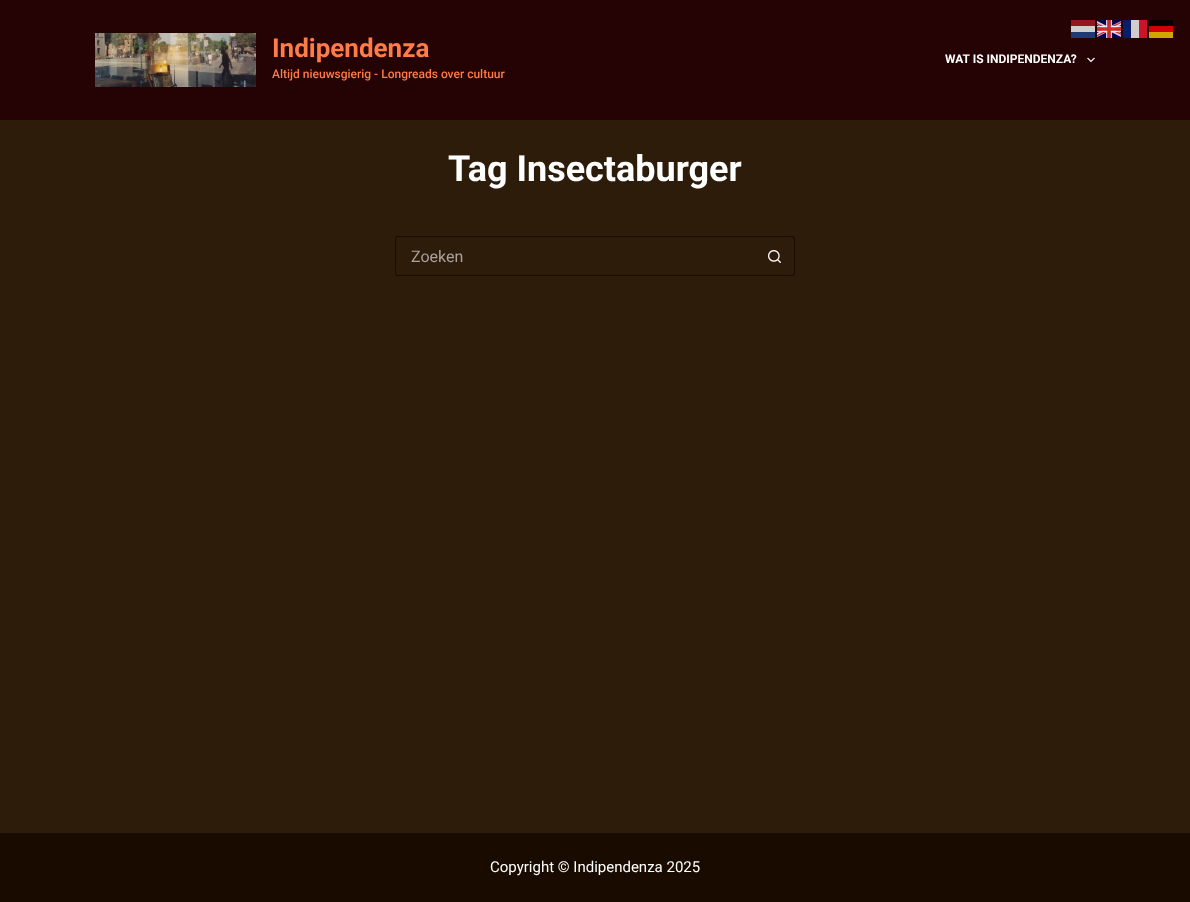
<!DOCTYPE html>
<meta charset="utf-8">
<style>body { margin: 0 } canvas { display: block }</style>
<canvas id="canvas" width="1190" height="902"></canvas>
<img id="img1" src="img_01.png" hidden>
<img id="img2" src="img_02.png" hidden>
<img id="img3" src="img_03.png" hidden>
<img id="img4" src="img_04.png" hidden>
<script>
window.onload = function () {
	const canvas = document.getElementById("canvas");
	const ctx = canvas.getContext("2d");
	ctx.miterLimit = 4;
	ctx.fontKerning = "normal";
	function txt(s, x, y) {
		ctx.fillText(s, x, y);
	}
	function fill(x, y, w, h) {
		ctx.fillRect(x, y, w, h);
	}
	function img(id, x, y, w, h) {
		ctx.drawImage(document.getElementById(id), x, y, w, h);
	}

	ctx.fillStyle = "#2E1C0B";
	fill(0, 0, 1190, 902);
	ctx.fillStyle = "#250203";
	fill(0, 0, 1190, 120);
	ctx.fillStyle = "#931721";
	fill(1071, 20, 24, 6);
	img("img1", 1097, 20, 24, 18);
	ctx.fillStyle = "#071F66";
	fill(1123, 20, 8, 18);
	ctx.fillStyle = "#D3CCCD";
	fill(1131, 20, 8, 18);
	ctx.fillStyle = "#CA1427";
	fill(1139, 20, 8, 18);
	ctx.fillStyle = "#070001";
	fill(1149, 20, 24, 6);
	ctx.fillStyle = "#D3CCCD";
	fill(1071, 26, 24, 6);
	ctx.fillStyle = "#D30001";
	fill(1149, 26, 24, 6);
	ctx.fillStyle = "#223870";
	fill(1071, 32, 24, 6);
	ctx.fillStyle = "#D3A401";
	fill(1149, 32, 24, 6);
	img("img2", 95, 33, 161, 54);
	img("img3", 1087, 57, 8, 6);
	ctx.fillStyle = "#190B00";
	ctx.beginPath();
	ctx.moveTo(398, 236);
	ctx.lineTo(755, 236);
	ctx.lineTo(755, 276);
	ctx.lineTo(398, 276);
	ctx.bezierCurveTo(396, 276, 395, 275, 395, 273);
	ctx.lineTo(395, 239);
	ctx.bezierCurveTo(395, 237, 396, 236, 398, 236);
	ctx.closePath();
	ctx.moveTo(398, 237);
	ctx.lineTo(755, 237);
	ctx.lineTo(755, 275);
	ctx.lineTo(397, 275);
	ctx.bezierCurveTo(395, 273, 396, 268, 396, 267);
	ctx.lineTo(396, 239);
	ctx.lineTo(397, 237);
	ctx.closePath();
	ctx.fill("evenodd");
	ctx.beginPath();
	ctx.moveTo(755, 236);
	ctx.lineTo(792, 236);
	ctx.bezierCurveTo(794, 236, 795, 237, 795, 239);
	ctx.lineTo(795, 273);
	ctx.bezierCurveTo(795, 275, 794, 276, 792, 276);
	ctx.lineTo(755, 276);
	ctx.closePath();
	ctx.moveTo(755, 237);
	ctx.lineTo(792, 237);
	ctx.bezierCurveTo(793, 237, 794, 238, 794, 239);
	ctx.lineTo(794, 273);
	ctx.bezierCurveTo(794, 274, 793, 275, 792, 275);
	ctx.lineTo(755, 275);
	ctx.closePath();
	ctx.fill("evenodd");
	img("img4", 768, 250, 13, 13);
	fill(0, 833, 1190, 69);
	ctx.font = "bold 26px Roboto";
	ctx.fillStyle = "#FD7C47";
	txt("Indipendenza", 272, 57);
	ctx.font = "500 12px Roboto";
	txt("Altijd nieuwsgierig - Longreads over cultuur", 272, 78);
	ctx.font = "bold 12px Roboto";
	ctx.fillStyle = "#FFFFFF";
	txt("WAT IS INDIPENDENZA?", 945, 63);
	ctx.font = "bold 36px Roboto";
	txt("Tag Insectaburger", 448, 181);
	ctx.font = "16px Roboto";
	ctx.fillStyle = "#ABA29C";
	txt("Zoeken", 411, 262);
	ctx.font = "15px Roboto";
	ctx.fillStyle = "#FFFFFF";
	txt("Copyright © Indipendenza 2025", 490, 872);
};
</script>
